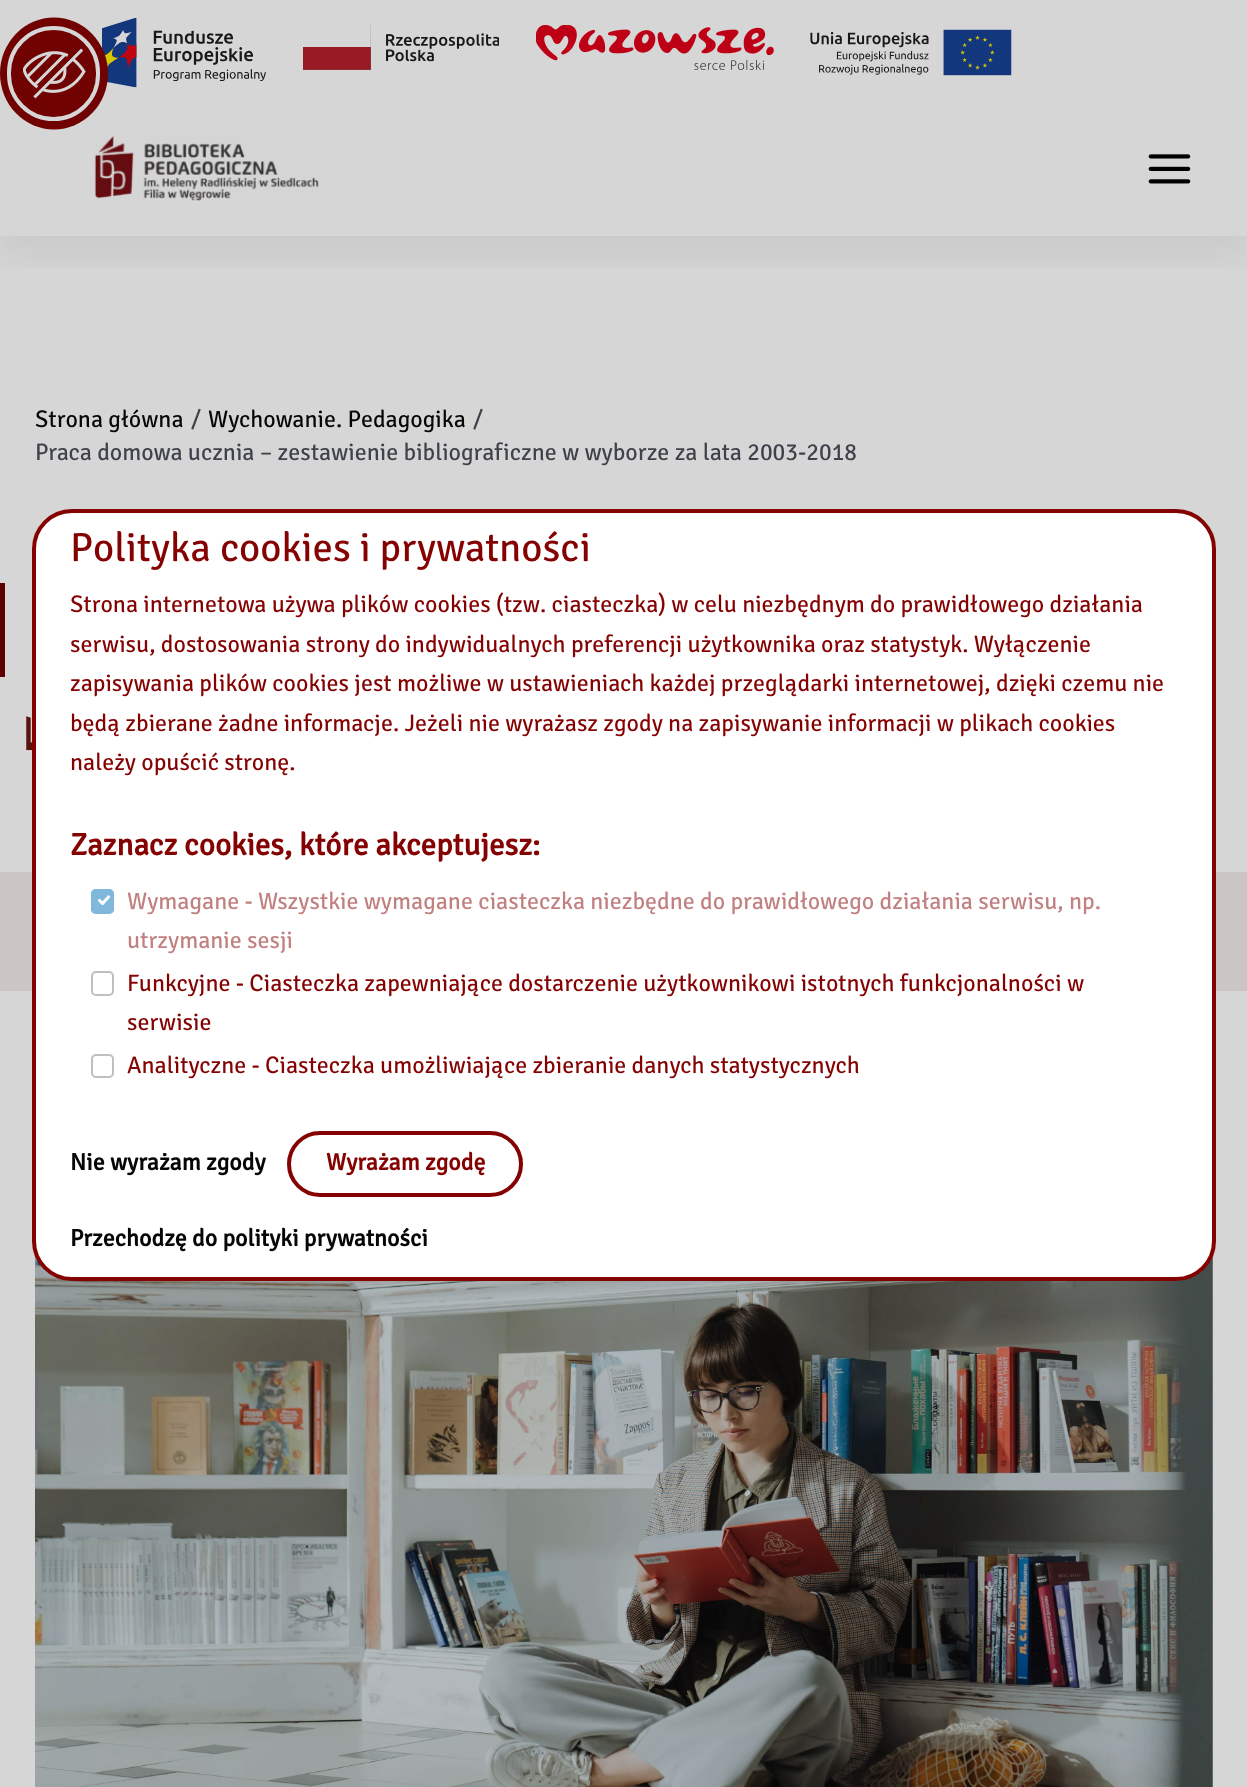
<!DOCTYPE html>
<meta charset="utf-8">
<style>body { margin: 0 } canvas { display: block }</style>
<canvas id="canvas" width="1247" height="1787"></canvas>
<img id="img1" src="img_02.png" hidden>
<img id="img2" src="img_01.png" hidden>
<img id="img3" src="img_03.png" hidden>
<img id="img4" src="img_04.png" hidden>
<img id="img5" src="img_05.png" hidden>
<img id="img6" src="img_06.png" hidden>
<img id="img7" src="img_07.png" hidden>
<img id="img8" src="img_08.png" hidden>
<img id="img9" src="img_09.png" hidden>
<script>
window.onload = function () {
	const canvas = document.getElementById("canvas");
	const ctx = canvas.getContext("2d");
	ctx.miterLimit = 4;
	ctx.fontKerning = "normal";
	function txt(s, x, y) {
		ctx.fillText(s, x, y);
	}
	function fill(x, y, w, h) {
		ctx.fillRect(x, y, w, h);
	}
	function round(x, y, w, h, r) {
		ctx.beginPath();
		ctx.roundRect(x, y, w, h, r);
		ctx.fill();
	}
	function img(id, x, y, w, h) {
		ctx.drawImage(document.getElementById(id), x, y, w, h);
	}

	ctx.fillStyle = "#D6D6D6";
	fill(0, 0, 1247, 1787);
	ctx.save();
	ctx.beginPath();
	ctx.rect(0, 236, 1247, 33);
	ctx.clip();
	ctx.fillStyle = "rgba(83, 83, 83, 0.09)";
	ctx.filter = "blur(17.5px)";
	ctx.beginPath();
	ctx.rect(0, 19, 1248, 237);
	ctx.fill();
	ctx.filter = "none";
	ctx.restore();
	img("img1", 102, 18, 164, 70);
	ctx.fillStyle = "#700202";
	ctx.beginPath();
	ctx.ellipse(54, 73.5, 54, 56, 0, 0, Math.PI * 2);
	ctx.fill();
	img("img2", 23, 48, 63, 51);
	ctx.beginPath();
	ctx.roundRect(9, 28, 89, 91, 44.5);
	ctx.strokeStyle = "#D6D6D6";
	ctx.lineWidth = 4;
	ctx.stroke();
	img("img3", 303, 25, 196, 45);
	img("img4", 536, 25, 238, 45);
	img("img5", 810, 29, 202, 47);
	img("img6", 94, 136, 225, 65);
	img("img7", 1148, 154, 43, 30);
	ctx.fillStyle = "#5C0000";
	fill(0, 583, 5, 100);
	ctx.fillStyle = "#CCC5C5";
	fill(0, 872, 1247, 119);
	img("img8", 35, 1256, 1178, 531);
	ctx.fillStyle = "#D6D6D6";
	fill(0, 677, 5, 6);
	img("img9", 26, 716, 6, 35);
	ctx.fillStyle = "#FFFFFF";
	ctx.beginPath();
	ctx.roundRect(34, 511, 1180, 768, 38);
	ctx.fill();
	ctx.strokeStyle = "#850202";
	ctx.stroke();
	ctx.fillStyle = "#80B8DC";
	round(91, 889, 23, 25, 5);
	ctx.beginPath();
	ctx.moveTo(99.5, 900.5);
	ctx.lineTo(102.5, 903.5);
	ctx.lineTo(108.5, 897);
	ctx.strokeStyle = "#FFFFFF";
	ctx.lineWidth = 3.1;
	ctx.lineCap = "round";
	ctx.lineJoin = "round";
	ctx.stroke();
	ctx.beginPath();
	ctx.roundRect(92, 890, 21, 23, 4);
	ctx.strokeStyle = "#80B8DC";
	ctx.lineWidth = 2;
	ctx.lineJoin = "miter";
	ctx.stroke();
	ctx.beginPath();
	ctx.roundRect(92, 972, 21, 23, 4);
	ctx.strokeStyle = "#BFBFBF";
	ctx.stroke();
	ctx.beginPath();
	ctx.roundRect(92, 1055, 21, 22, 4);
	ctx.stroke();
	ctx.beginPath();
	ctx.roundRect(289, 1133, 232, 62, 31);
	ctx.strokeStyle = "#850202";
	ctx.lineWidth = 4;
	ctx.stroke();
	ctx.font = "23.95px Signika Negative";
	ctx.fillStyle = "#060606";
	txt("Strona główna", 35, 427);
	ctx.fillStyle = "#3F424A";
	txt("/", 191, 427);
	ctx.fillStyle = "#060606";
	txt("Wychowanie. Pedagogika", 208, 427);
	ctx.fillStyle = "#3F424A";
	txt("/", 473, 427);
	txt("Praca domowa ucznia – zestawienie bibliograficzne w wyborze za lata 2003-2018", 35, 460);
	ctx.font = "40.75px Signika Negative";
	ctx.fillStyle = "#850202";
	txt("Polityka cookies i prywatności", 70, 561);
	ctx.font = "23.95px Signika Negative";
	txt("Strona internetowa używa plików cookies (tzw. ciasteczka) w celu niezbędnym do prawidłowego działania", 70, 612);
	txt("serwisu, dostosowania strony do indywidualnych preferencji użytkownika oraz statystyk. Wyłączenie", 70, 652);
	txt("zapisywania plików cookies jest możliwe w ustawieniach każdej przeglądarki internetowej, dzięki czemu nie", 70, 691);
	txt("będą zbierane żadne informacje. Jeżeli nie wyrażasz zgody na zapisywanie informacji w plikach cookies", 70, 731);
	txt("należy opuścić stronę.", 70, 770);
	ctx.font = "bold 31.1px Signika Negative";
	txt("Zaznacz cookies, które akceptujesz:", 70, 855);
	ctx.font = "23.95px Signika Negative";
	ctx.fillStyle = "#C28181";
	txt("Wymagane - Wszystkie wymagane ciasteczka niezbędne do prawidłowego działania serwisu, np.", 127, 909);
	txt("utrzymanie sesji", 127, 948);
	ctx.fillStyle = "#850202";
	txt("Funkcyjne - Ciasteczka zapewniające dostarczenie użytkownikowi istotnych funkcjonalności w", 127, 991);
	txt("serwisie", 127, 1030);
	txt("Analityczne - Ciasteczka umożliwiające zbieranie danych statystycznych", 127, 1073);
	ctx.font = "bold 23.95px Signika Negative";
	ctx.fillStyle = "#060606";
	txt("Nie wyrażam zgody", 70, 1170);
	ctx.fillStyle = "#850202";
	txt("Wyrażam zgodę", 326, 1170);
	ctx.fillStyle = "#060606";
	txt("Przechodzę do polityki prywatności", 70, 1246);
};
</script>
